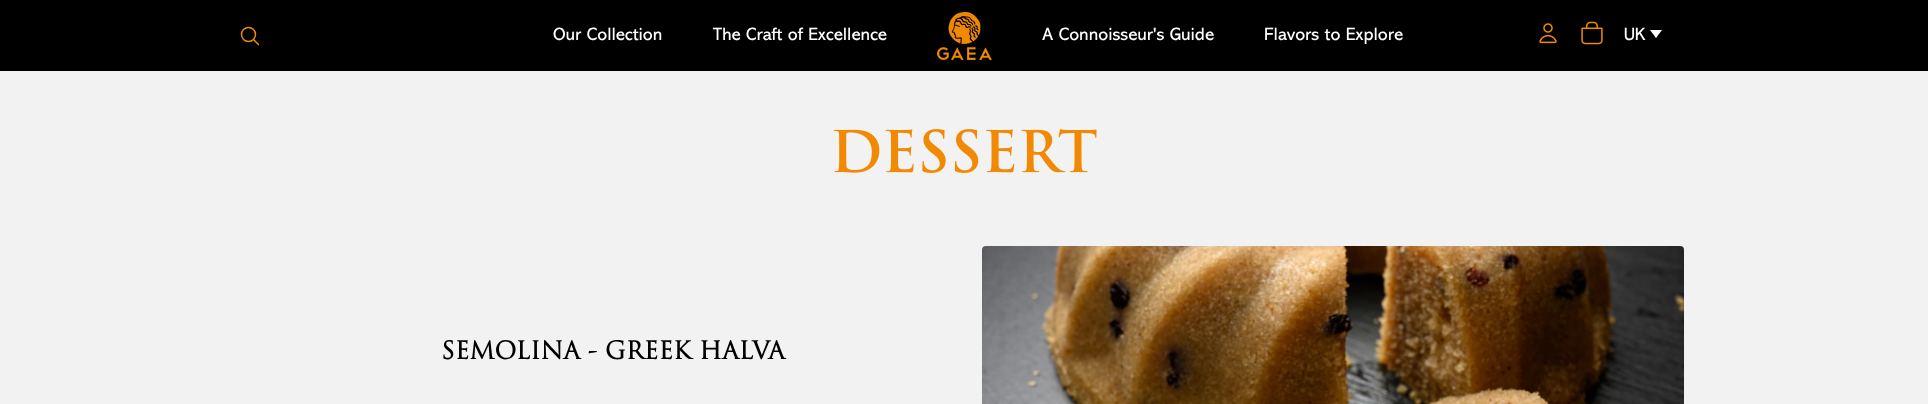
<!DOCTYPE html>
<meta charset="utf-8">
<style>body { margin: 0 } canvas { display: block }</style>
<canvas id="canvas" width="1928" height="404"></canvas>
<img id="img1" src="img_01.png" hidden>
<img id="img2" src="img_02.png" hidden>
<img id="img3" src="img_03.png" hidden>
<img id="img4" src="img_04.png" hidden>
<img id="img5" src="img_05.png" hidden>
<script>
window.onload = function () {
	const canvas = document.getElementById("canvas");
	const ctx = canvas.getContext("2d");
	ctx.miterLimit = 4;
	ctx.fontKerning = "normal";
	function txt(s, x, y) {
		ctx.fillText(s, x, y);
	}
	function fill(x, y, w, h) {
		ctx.fillRect(x, y, w, h);
	}
	function img(id, x, y, w, h) {
		ctx.drawImage(document.getElementById(id), x, y, w, h);
	}

	ctx.fillStyle = "#F2F2F2";
	fill(0, 0, 1928, 404);
	ctx.fillStyle = "#000000";
	fill(0, 0, 1928, 71);
	ctx.beginPath();
	ctx.arc(248.5, 34.5, 7, 0, Math.PI * 2);
	ctx.strokeStyle = "#F18903";
	ctx.lineWidth = 1.5;
	ctx.stroke();
	ctx.beginPath();
	ctx.moveTo(254, 40);
	ctx.lineTo(258.5, 44.5);
	ctx.lineCap = "round";
	ctx.lineJoin = "round";
	ctx.stroke();
	img("img1", 937, 12, 55, 48);
	img("img2", 1539, 23, 18, 21);
	img("img3", 1581, 21, 22, 24);
	ctx.fillStyle = "#FFFFFF";
	ctx.beginPath();
	ctx.moveTo(1650, 30);
	ctx.lineTo(1662, 30);
	ctx.lineTo(1656, 38);
	ctx.closePath();
	ctx.fill();
	img("img4", 833, 129, 264, 44);
	img("img5", 982, 246, 702, 158);
	ctx.font = "18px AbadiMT";
	txt("Our Collection", 553, 40);
	txt("The Craft of Excellence", 713, 40);
	txt("A Connoisseur's Guide", 1042, 40);
	txt("Flavors to Explore", 1264, 40);
	txt("UK", 1624, 40);
	ctx.font = "bold 24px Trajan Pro";
	ctx.fillStyle = "#000000";
	txt("SEMOLINA - GREEK HALVA", 441, 359);
};
</script>
